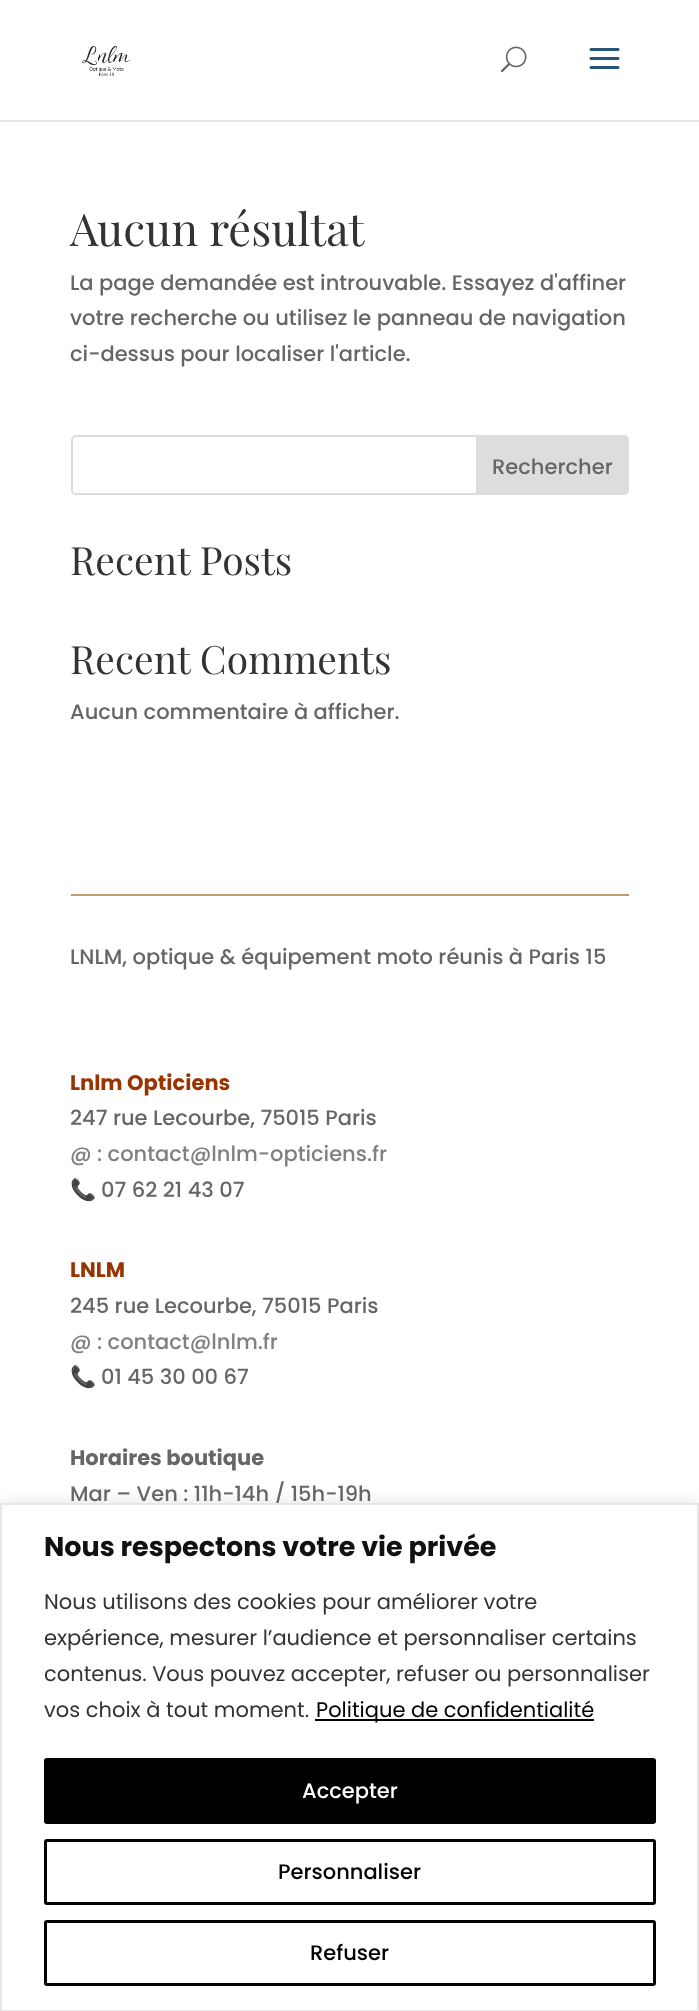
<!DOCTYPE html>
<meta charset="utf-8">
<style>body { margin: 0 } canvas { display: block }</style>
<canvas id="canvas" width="699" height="2011"></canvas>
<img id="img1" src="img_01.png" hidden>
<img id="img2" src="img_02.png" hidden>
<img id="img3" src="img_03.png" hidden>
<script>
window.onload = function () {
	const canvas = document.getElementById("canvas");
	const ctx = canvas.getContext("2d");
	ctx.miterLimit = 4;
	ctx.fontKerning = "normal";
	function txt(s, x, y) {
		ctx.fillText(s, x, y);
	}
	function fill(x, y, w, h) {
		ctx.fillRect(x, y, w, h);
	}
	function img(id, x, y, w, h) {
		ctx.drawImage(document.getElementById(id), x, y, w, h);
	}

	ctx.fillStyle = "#FFFFFF";
	fill(0, 0, 699, 2011);
	ctx.fillStyle = "#E6E6E6";
	fill(0, 120, 699, 2);
	img("img1", 81, 45, 50, 31);
	img("img2", 500, 46, 27, 27);
	img("img3", 589, 48, 31, 21);
	ctx.beginPath();
	ctx.roundRect(72, 436, 556, 58, 4);
	ctx.strokeStyle = "#DDDDDD";
	ctx.lineWidth = 2;
	ctx.stroke();
	ctx.fillStyle = "#DDDDDD";
	ctx.beginPath();
	ctx.roundRect(477, 436, 151, 58, [0, 4, 4, 0]);
	ctx.fill();
	ctx.stroke();
	ctx.fillStyle = "#C49A6C";
	fill(71, 894, 558, 2);
	ctx.fillStyle = "rgba(172, 171, 171, 0.3)";
	ctx.filter = "blur(7.5px)";
	ctx.beginPath();
	ctx.rect(0, 1502, 699, 508);
	ctx.fill();
	ctx.filter = "none";
	ctx.font = "45px Playfair Display";
	ctx.fillStyle = "#333333";
	txt("Aucun résultat", 70, 246);
	ctx.font = "500 21px Poppins";
	ctx.fillStyle = "#666666";
	txt("La page demandée est introuvable. Essayez d'affiner", 70, 290);
	txt("votre recherche ou utilisez le panneau de navigation", 70, 325);
	txt("ci-dessus pour localiser l'article.", 70, 361);
	txt("Rechercher", 492, 474);
	ctx.font = "39px Playfair Display";
	ctx.fillStyle = "#333333";
	txt("Recent Posts", 70, 575);
	txt("Recent Comments", 70, 674);
	ctx.font = "500 21px Poppins";
	ctx.fillStyle = "#666666";
	txt("Aucun commentaire à afficher.", 70, 719);
	txt("LNLM, optique & équipement moto réunis à Paris 15", 70, 964);
	ctx.font = "bold 21px Poppins";
	ctx.fillStyle = "#993300";
	txt("Lnlm Opticiens", 70, 1090);
	ctx.font = "500 21px Poppins";
	ctx.fillStyle = "#666666";
	txt("247 rue Lecourbe, 75015 Paris", 70, 1125);
	ctx.fillStyle = "#808080";
	txt("@ : contact@lnlm-opticiens.fr", 70, 1161);
	ctx.font = "21px Noto Color Emoji";
	ctx.fillStyle = "#666666";
	txt("📞", 70, 1197);
	ctx.font = "500 21px Poppins";
	txt("07 62 21 43 07", 101, 1197);
	ctx.font = "bold 21px Poppins";
	ctx.fillStyle = "#993300";
	txt("LNLM", 70, 1277);
	ctx.font = "500 21px Poppins";
	ctx.fillStyle = "#666666";
	txt("245 rue Lecourbe, 75015 Paris", 70, 1313);
	ctx.fillStyle = "#808080";
	txt("@ : contact@lnlm.fr", 70, 1349);
	ctx.font = "21px Noto Color Emoji";
	ctx.fillStyle = "#666666";
	txt("📞", 70, 1384);
	ctx.font = "500 21px Poppins";
	txt("01 45 30 00 67", 101, 1384);
	ctx.font = "bold 21px Poppins";
	txt("Horaires boutique", 70, 1465);
	ctx.font = "500 21px Poppins";
	txt("Mar – Ven : 11h-14h / 15h-19h", 70, 1501);
	ctx.fillStyle = "#FFFFFF";
	ctx.beginPath();
	ctx.rect(1, 1504, 697, 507);
	ctx.fill();
	ctx.strokeStyle = "#E6E6E6";
	ctx.stroke();
	ctx.font = "bold 27px Poppins";
	ctx.fillStyle = "#111111";
	txt("Nous respectons votre vie privée", 44, 1556);
	ctx.font = "21px Poppins";
	ctx.fillStyle = "#333333";
	txt("Nous utilisons des cookies pour améliorer votre", 44, 1609);
	txt("expérience, mesurer l’audience et personnaliser certains", 44, 1645);
	txt("contenus. Vous pouvez accepter, refuser ou personnaliser", 44, 1681);
	txt("vos choix à tout moment.", 44, 1717);
	ctx.fillStyle = "#000000";
	fill(315, 1719, 279, 2);
	txt("Politique de confidentialité", 316, 1717);
	ctx.beginPath();
	ctx.roundRect(45.5, 1759.5, 609, 63, 1.5);
	ctx.fill();
	ctx.strokeStyle = "#000000";
	ctx.lineWidth = 3;
	ctx.stroke();
	ctx.font = "500 21px Poppins";
	ctx.fillStyle = "#FFFFFF";
	txt("Accepter", 302, 1798);
	ctx.beginPath();
	ctx.roundRect(45.5, 1840.5, 609, 63, 1.5);
	ctx.stroke();
	ctx.fillStyle = "#000000";
	txt("Personnaliser", 278, 1879);
	ctx.beginPath();
	ctx.roundRect(45.5, 1921.5, 609, 63, 1.5);
	ctx.stroke();
	txt("Refuser", 310, 1960);
};
</script>
